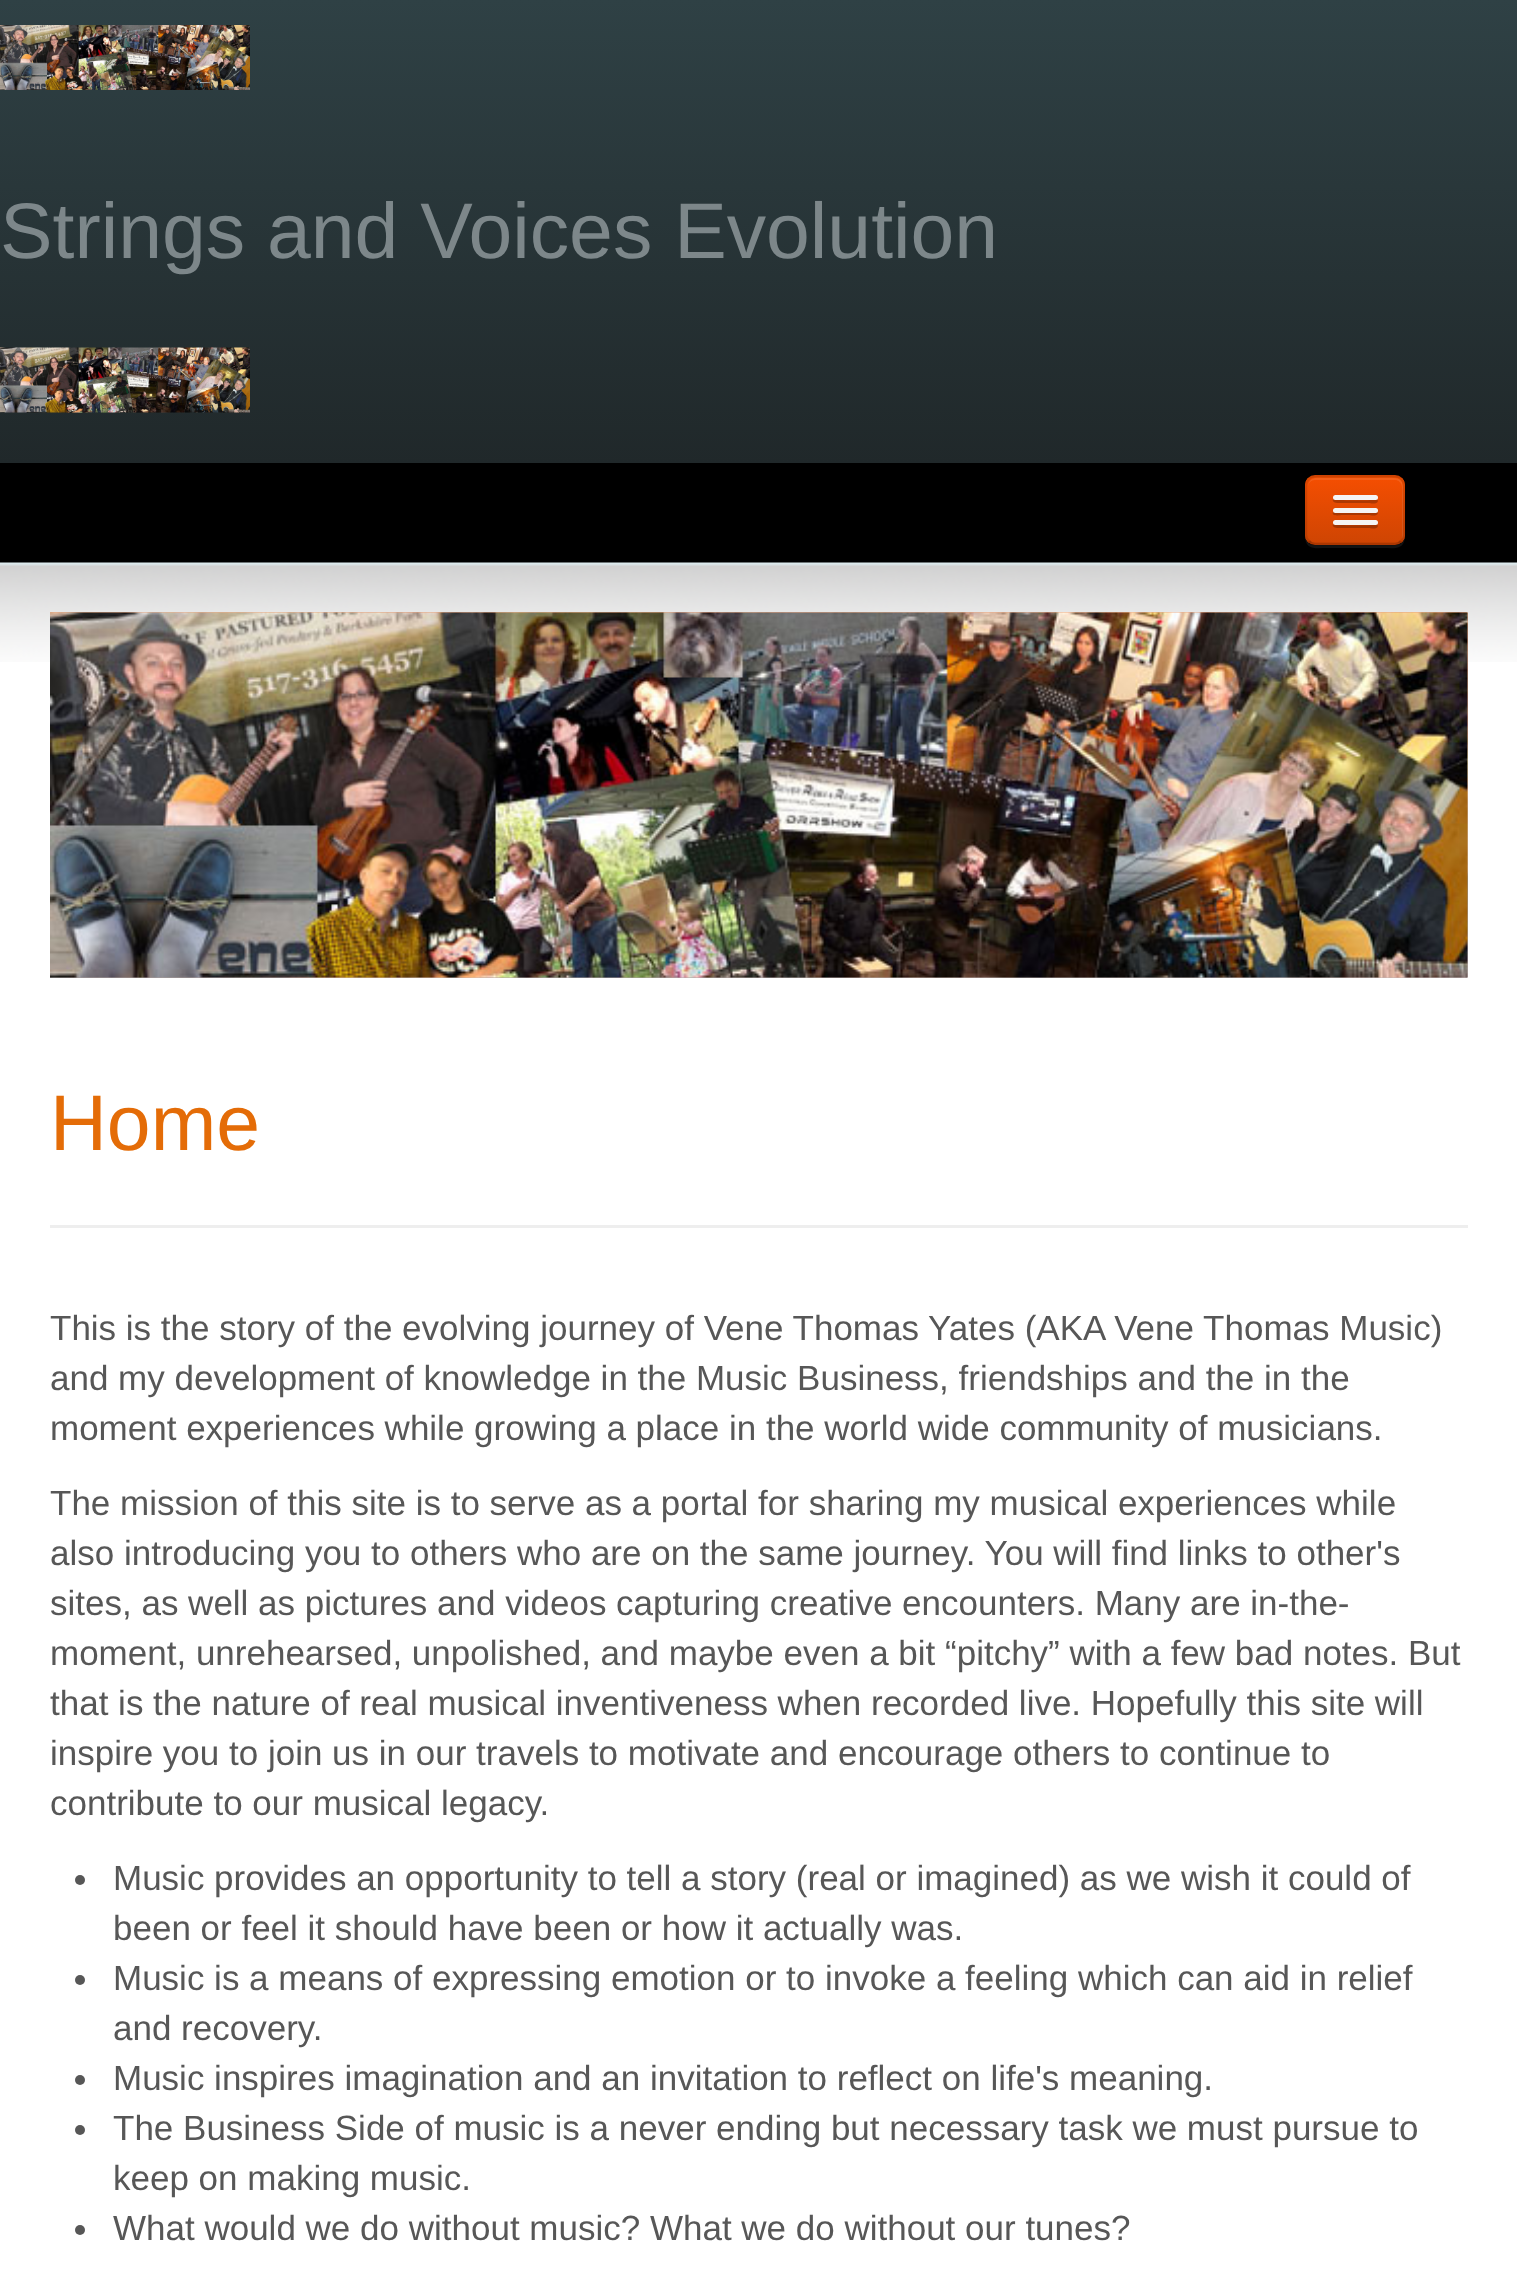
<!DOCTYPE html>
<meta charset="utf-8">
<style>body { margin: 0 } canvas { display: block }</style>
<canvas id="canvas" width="1517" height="2289"></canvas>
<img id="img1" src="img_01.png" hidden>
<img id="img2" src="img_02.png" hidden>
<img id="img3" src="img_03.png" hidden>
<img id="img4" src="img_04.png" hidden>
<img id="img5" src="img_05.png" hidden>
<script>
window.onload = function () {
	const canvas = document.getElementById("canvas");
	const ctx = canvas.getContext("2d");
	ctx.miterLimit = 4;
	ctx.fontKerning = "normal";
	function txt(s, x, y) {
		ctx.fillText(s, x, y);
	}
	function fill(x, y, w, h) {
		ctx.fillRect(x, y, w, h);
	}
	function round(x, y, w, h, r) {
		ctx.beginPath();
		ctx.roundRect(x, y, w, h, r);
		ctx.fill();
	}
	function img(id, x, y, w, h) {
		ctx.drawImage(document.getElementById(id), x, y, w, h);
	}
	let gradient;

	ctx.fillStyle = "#FFFFFF";
	fill(0, 0, 1517, 2289);
	gradient = ctx.createLinearGradient(759, 0, 759, 463);
	gradient.addColorStop(0, "#2F4145");
	gradient.addColorStop(1, "#20282A");
	ctx.fillStyle = gradient;
	fill(0, 0, 1517, 463);
	img("img1", 0, 25, 250, 65);
	img("img2", 0, 347, 250, 66);
	ctx.fillStyle = "#000000";
	fill(0, 463, 1517, 100);
	ctx.fillStyle = "#131313";
	ctx.beginPath();
	ctx.moveTo(1305, 535);
	ctx.bezierCurveTo(1305, 551, 1316, 548, 1328, 548);
	ctx.lineTo(1382, 548);
	ctx.bezierCurveTo(1394, 548, 1405, 551, 1405, 535);
	ctx.bezierCurveTo(1405, 541, 1401, 545, 1395, 545);
	ctx.lineTo(1315, 545);
	ctx.bezierCurveTo(1309, 545, 1305, 541, 1305, 535);
	ctx.closePath();
	ctx.fill();
	ctx.fillStyle = "#E54A02";
	round(1305, 475, 100, 70, 10);
	ctx.save();
	ctx.beginPath();
	ctx.roundRect(1305, 475, 100, 70, 10);
	ctx.clip();
	gradient = ctx.createLinearGradient(1355, 478, 1355, 543);
	gradient.addColorStop(0, "#F44E01");
	gradient.addColorStop(1, "#CF4503");
	ctx.fillStyle = gradient;
	fill(1305, 478, 100, 65);
	ctx.restore();
	ctx.fillStyle = "rgba(255, 255, 255, 0.1)";
	ctx.beginPath();
	ctx.moveTo(1315, 480);
	ctx.lineTo(1396, 480);
	ctx.bezierCurveTo(1404, 482, 1402, 491, 1402, 496);
	ctx.lineTo(1402, 539);
	ctx.bezierCurveTo(1404, 536, 1403, 530, 1403, 527);
	ctx.lineTo(1403, 510);
	ctx.bezierCurveTo(1403, 473, 1408, 478, 1369, 478);
	ctx.lineTo(1329, 478);
	ctx.bezierCurveTo(1319, 478, 1308, 475, 1308, 488);
	ctx.bezierCurveTo(1308, 483, 1311, 480, 1315, 480);
	ctx.closePath();
	ctx.fill();
	ctx.beginPath();
	ctx.moveTo(1401, 541);
	ctx.bezierCurveTo(1399.5, 543, 1397.5, 544, 1395, 544);
	ctx.lineTo(1315, 544);
	ctx.bezierCurveTo(1312.5, 544, 1310.5, 543, 1309, 541);
	ctx.strokeStyle = "rgba(0, 0, 0, 0.25)";
	ctx.lineWidth = 2.5;
	ctx.stroke();
	ctx.beginPath();
	ctx.moveTo(1309, 541);
	ctx.bezierCurveTo(1307, 539.5, 1306, 537.5, 1306, 535);
	ctx.lineTo(1306, 485);
	ctx.bezierCurveTo(1306, 482.5, 1307, 480.5, 1309, 479);
	ctx.bezierCurveTo(1310.5, 477, 1312.5, 476, 1315, 476);
	ctx.lineTo(1395, 476);
	ctx.bezierCurveTo(1397.5, 476, 1399.5, 477, 1401, 479);
	ctx.bezierCurveTo(1403, 480.5, 1404, 482.5, 1404, 485);
	ctx.lineTo(1404, 535);
	ctx.bezierCurveTo(1404, 537.5, 1403, 539.5, 1401, 541);
	ctx.strokeStyle = "rgba(0, 0, 0, 0.1)";
	ctx.stroke();
	ctx.fillStyle = "#AD3802";
	ctx.beginPath();
	ctx.moveTo(1333, 499);
	ctx.bezierCurveTo(1331, 504, 1342, 503, 1342, 503);
	ctx.lineTo(1369, 503);
	ctx.bezierCurveTo(1370, 503, 1377, 505, 1378, 501);
	ctx.lineTo(1377, 499);
	ctx.lineTo(1375, 500);
	ctx.bezierCurveTo(1372, 500, 1335, 501, 1333, 499);
	ctx.closePath();
	ctx.fill();
	ctx.fillStyle = "#F5F5F5";
	round(1333, 495, 45, 5, 2.5);
	ctx.fillStyle = "#A83702";
	ctx.beginPath();
	ctx.moveTo(1333, 512);
	ctx.bezierCurveTo(1331, 517, 1341, 515, 1342, 515);
	ctx.lineTo(1369, 515);
	ctx.bezierCurveTo(1370, 515, 1377, 517, 1378, 513);
	ctx.lineTo(1377, 511);
	ctx.lineTo(1375, 512);
	ctx.lineTo(1335, 512);
	ctx.closePath();
	ctx.fill();
	ctx.fillStyle = "#F5F5F5";
	round(1333, 508, 45, 5, 2.5);
	ctx.fillStyle = "#A23502";
	ctx.beginPath();
	ctx.moveTo(1333, 524);
	ctx.bezierCurveTo(1331, 529, 1342, 528, 1342, 528);
	ctx.lineTo(1369, 528);
	ctx.bezierCurveTo(1370, 528, 1377, 530, 1378, 526);
	ctx.lineTo(1377, 524);
	ctx.lineTo(1375, 525);
	ctx.bezierCurveTo(1372, 525, 1335, 526, 1333, 524);
	ctx.closePath();
	ctx.fill();
	ctx.fillStyle = "#F5F5F5";
	round(1333, 520, 45, 5, 2.5);
	img("img3", 0, 562, 1517, 100);
	img("img4", 50, 612, 1418, 366);
	img("img5", 50, 612, 1418, 366);
	ctx.fillStyle = "#EEEEEE";
	fill(50, 1225, 1418, 3);
	ctx.fillStyle = "#575757";
	ctx.beginPath();
	ctx.arc(80, 1880, 5, 0, Math.PI * 2);
	ctx.fill();
	ctx.beginPath();
	ctx.arc(80, 1980, 5, 0, Math.PI * 2);
	ctx.fill();
	ctx.beginPath();
	ctx.arc(80, 2080, 5, 0, Math.PI * 2);
	ctx.fill();
	ctx.beginPath();
	ctx.arc(80, 2130, 5, 0, Math.PI * 2);
	ctx.fill();
	ctx.beginPath();
	ctx.arc(80, 2230, 5, 0, Math.PI * 2);
	ctx.fill();
	ctx.font = "78.75px Liberation Sans";
	ctx.fillStyle = "#7D878A";
	txt("Strings and Voices Evolution", 0, 258);
	ctx.fillStyle = "#E46C07";
	txt("Home", 50, 1150);
	ctx.font = "35px Liberation Sans";
	ctx.fillStyle = "#575757";
	txt("This is the story of the evolving journey of Vene Thomas Yates (AKA Vene Thomas Music)", 50, 1340);
	txt("and my development of knowledge in the Music Business, friendships and the in the", 50, 1390);
	txt("moment experiences while growing a place in the world wide community of musicians.", 50, 1440);
	txt("The mission of this site is to serve as a portal for sharing my musical experiences while", 50, 1515);
	txt("also introducing you to others who are on the same journey. You will find links to other's", 50, 1565);
	txt("sites, as well as pictures and videos capturing creative encounters. Many are in-the-", 50, 1615);
	txt("moment, unrehearsed, unpolished, and maybe even a bit “pitchy” with a few bad notes. But", 50, 1665);
	txt("that is the nature of real musical inventiveness when recorded live. Hopefully this site will", 50, 1715);
	txt("inspire you to join us in our travels to motivate and encourage others to continue to", 50, 1765);
	txt("contribute to our musical legacy.", 50, 1815);
	txt("Music provides an opportunity to tell a story (real or imagined) as we wish it could of", 113, 1890);
	txt("been or feel it should have been or how it actually was.", 113, 1940);
	txt("Music is a means of expressing emotion or to invoke a feeling which can aid in relief", 113, 1990);
	txt("and recovery.", 113, 2040);
	txt("Music inspires imagination and an invitation to reflect on life's meaning.", 113, 2090);
	txt("The Business Side of music is a never ending but necessary task we must pursue to", 113, 2140);
	txt("keep on making music.", 113, 2190);
	txt("What would we do without music? What we do without our tunes?", 113, 2240);
};
</script>
